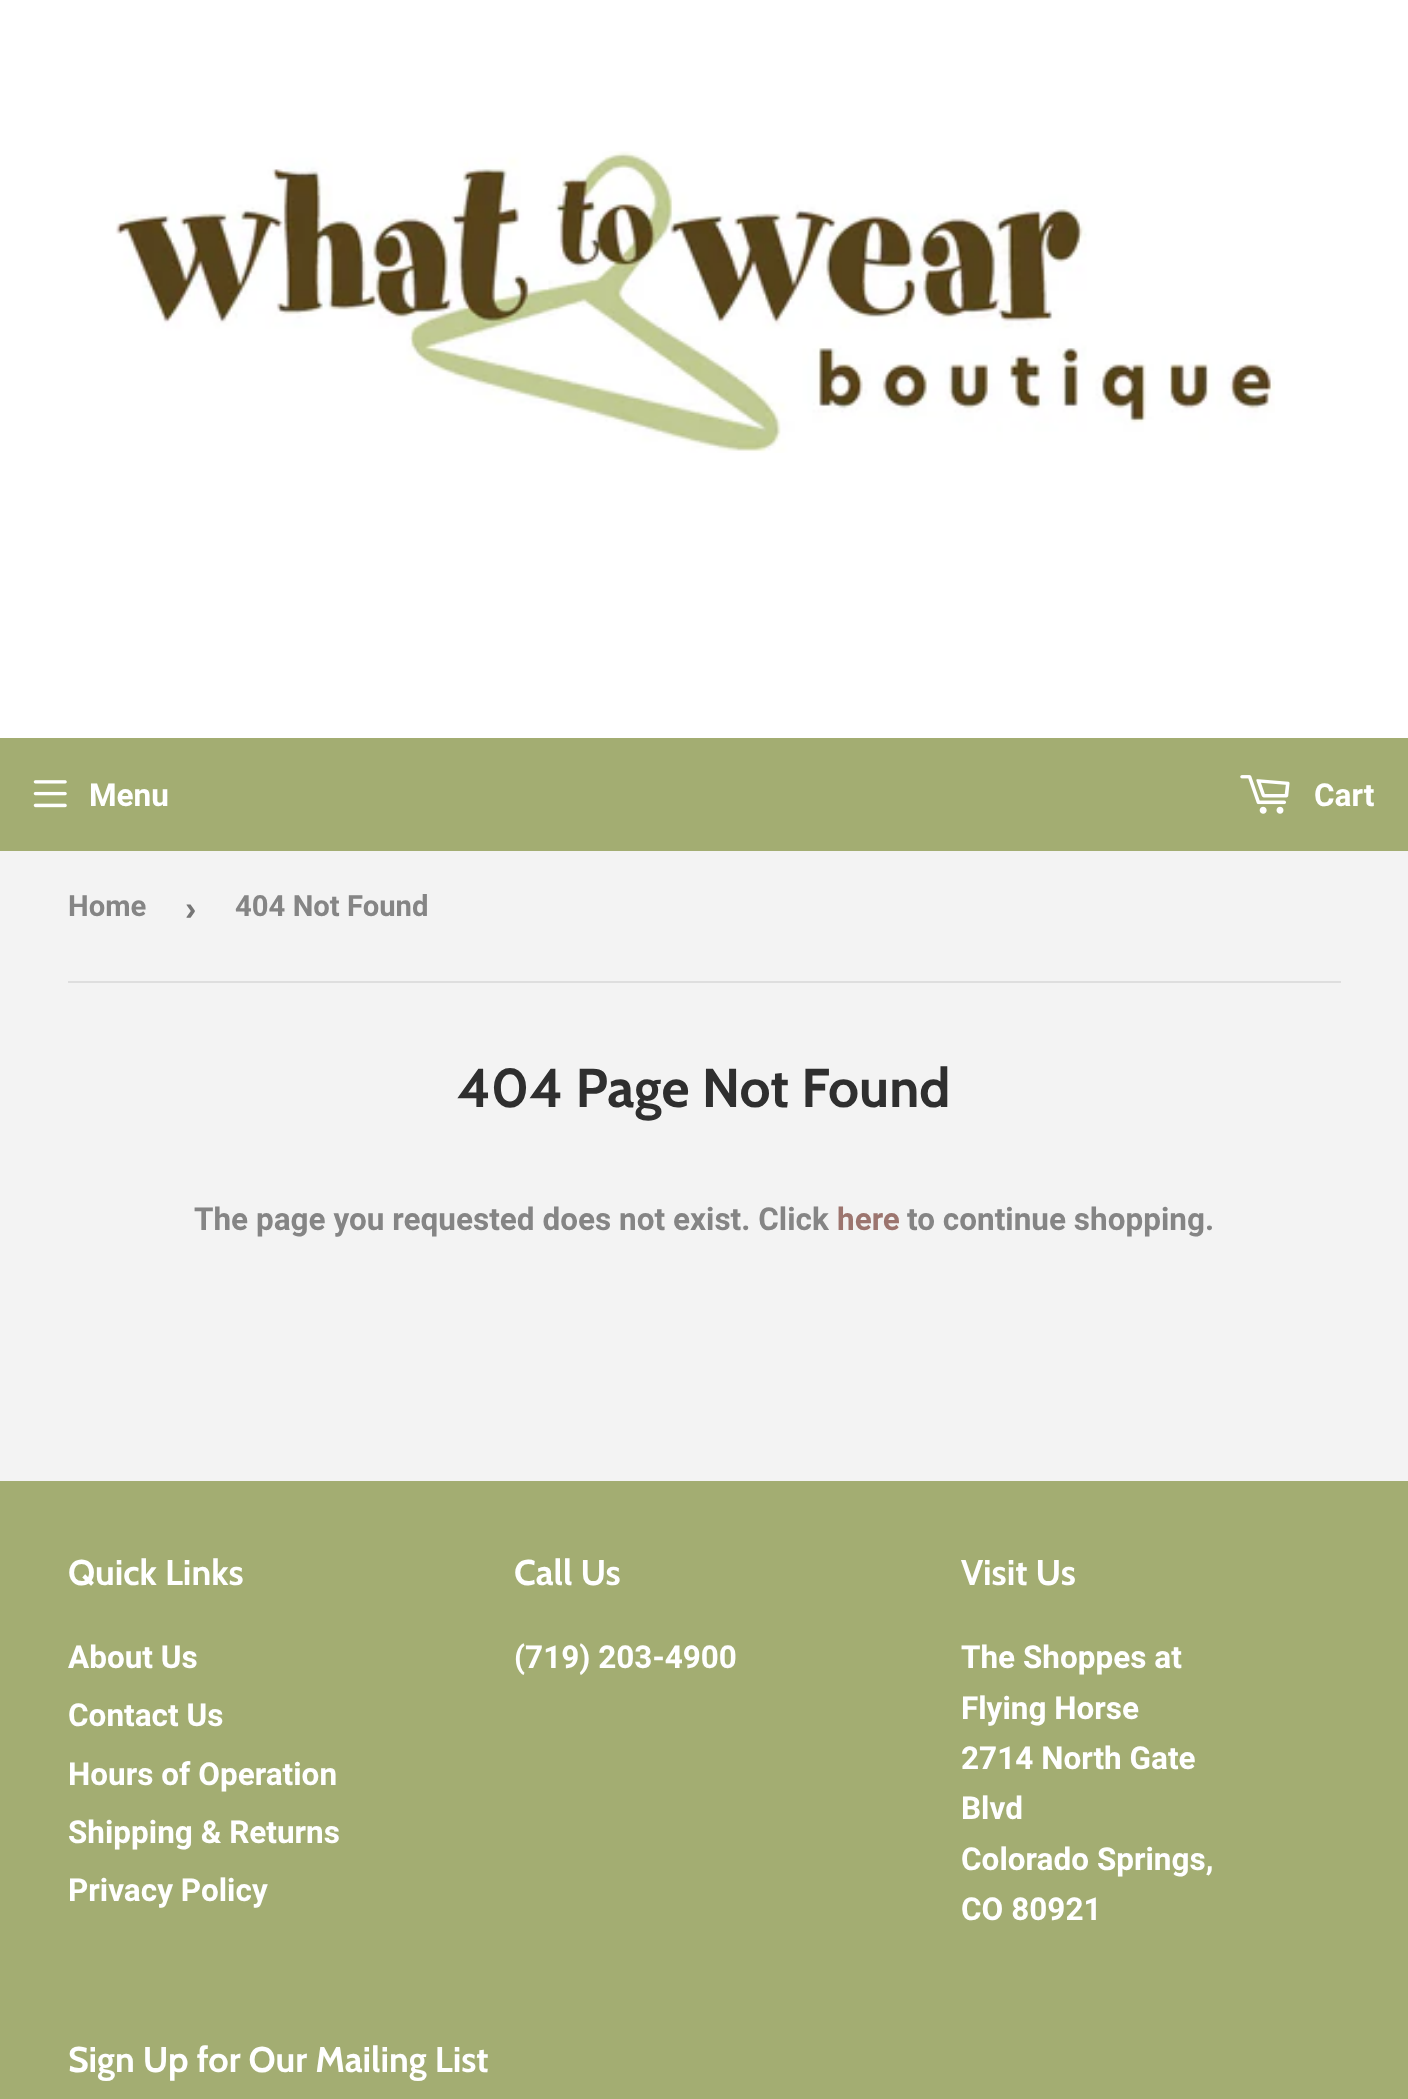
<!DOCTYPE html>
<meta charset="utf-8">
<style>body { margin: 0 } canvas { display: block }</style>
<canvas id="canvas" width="1408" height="2099"></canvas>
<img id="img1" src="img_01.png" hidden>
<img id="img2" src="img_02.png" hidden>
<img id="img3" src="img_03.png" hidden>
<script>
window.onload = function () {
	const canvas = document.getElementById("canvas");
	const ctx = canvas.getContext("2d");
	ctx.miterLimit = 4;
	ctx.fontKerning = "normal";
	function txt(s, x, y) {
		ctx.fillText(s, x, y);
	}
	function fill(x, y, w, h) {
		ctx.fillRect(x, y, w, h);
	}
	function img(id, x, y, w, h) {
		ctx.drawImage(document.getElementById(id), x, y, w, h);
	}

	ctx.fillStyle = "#F3F3F3";
	fill(0, 0, 1408, 2099);
	ctx.fillStyle = "#FFFFFF";
	fill(0, 0, 1408, 738);
	img("img1", 115, 151, 1160, 302);
	ctx.fillStyle = "#A3AD72";
	fill(0, 738, 1408, 113);
	img("img2", 33, 780, 34, 28);
	img("img3", 1240, 775, 50, 39);
	ctx.fillStyle = "#DEDEDE";
	fill(68, 981, 1273, 2);
	ctx.fillStyle = "#A3AD72";
	fill(0, 1481, 1408, 618);
	ctx.font = "bold 31.5px Roboto";
	ctx.fillStyle = "#FFFFFF";
	txt("Menu", 89, 806);
	txt("Cart", 1314, 806);
	ctx.font = "bold 29.25px Roboto";
	ctx.fillStyle = "#858585";
	txt("Home", 68, 916);
	ctx.font = "bold 34px Liberation Sans";
	ctx.fillStyle = "#767676";
	txt("›", 185, 920);
	ctx.font = "bold 29.25px Roboto";
	ctx.fillStyle = "#858585";
	txt("404 Not Found", 235, 916);
	ctx.font = "bold 54.5px Cabin";
	ctx.fillStyle = "#2F2F2F";
	txt("404 Page Not Found", 457, 1107);
	ctx.font = "bold 31.5px Roboto";
	ctx.fillStyle = "#858585";
	txt("The page you requested does not exist. Click", 194, 1230);
	ctx.fillStyle = "#9C756F";
	txt("here", 837, 1230);
	ctx.fillStyle = "#858585";
	txt("to continue shopping.", 907, 1230);
	ctx.font = "bold 35.75px Cabin";
	ctx.fillStyle = "#FFFFFF";
	txt("Quick Links", 68, 1585);
	ctx.font = "bold 31.5px Roboto";
	txt("About Us", 68, 1668);
	txt("Contact Us", 68, 1726);
	txt("Hours of Operation", 68, 1785);
	txt("Shipping & Returns", 68, 1843);
	txt("Privacy Policy", 68, 1901);
	ctx.font = "bold 35.75px Cabin";
	txt("Call Us", 514, 1585);
	ctx.font = "bold 31.5px Roboto";
	txt("(719) 203-4900", 514, 1668);
	ctx.font = "bold 35.75px Cabin";
	txt("Visit Us", 961, 1585);
	ctx.font = "bold 31.5px Roboto";
	txt("The Shoppes at", 961, 1668);
	txt("Flying Horse", 961, 1719);
	txt("2714 North Gate", 961, 1769);
	txt("Blvd", 961, 1819);
	txt("Colorado Springs,", 961, 1870);
	txt("CO 80921", 961, 1920);
	ctx.font = "bold 35.75px Cabin";
	txt("Sign Up for Our Mailing List", 68, 2072);
};
</script>
